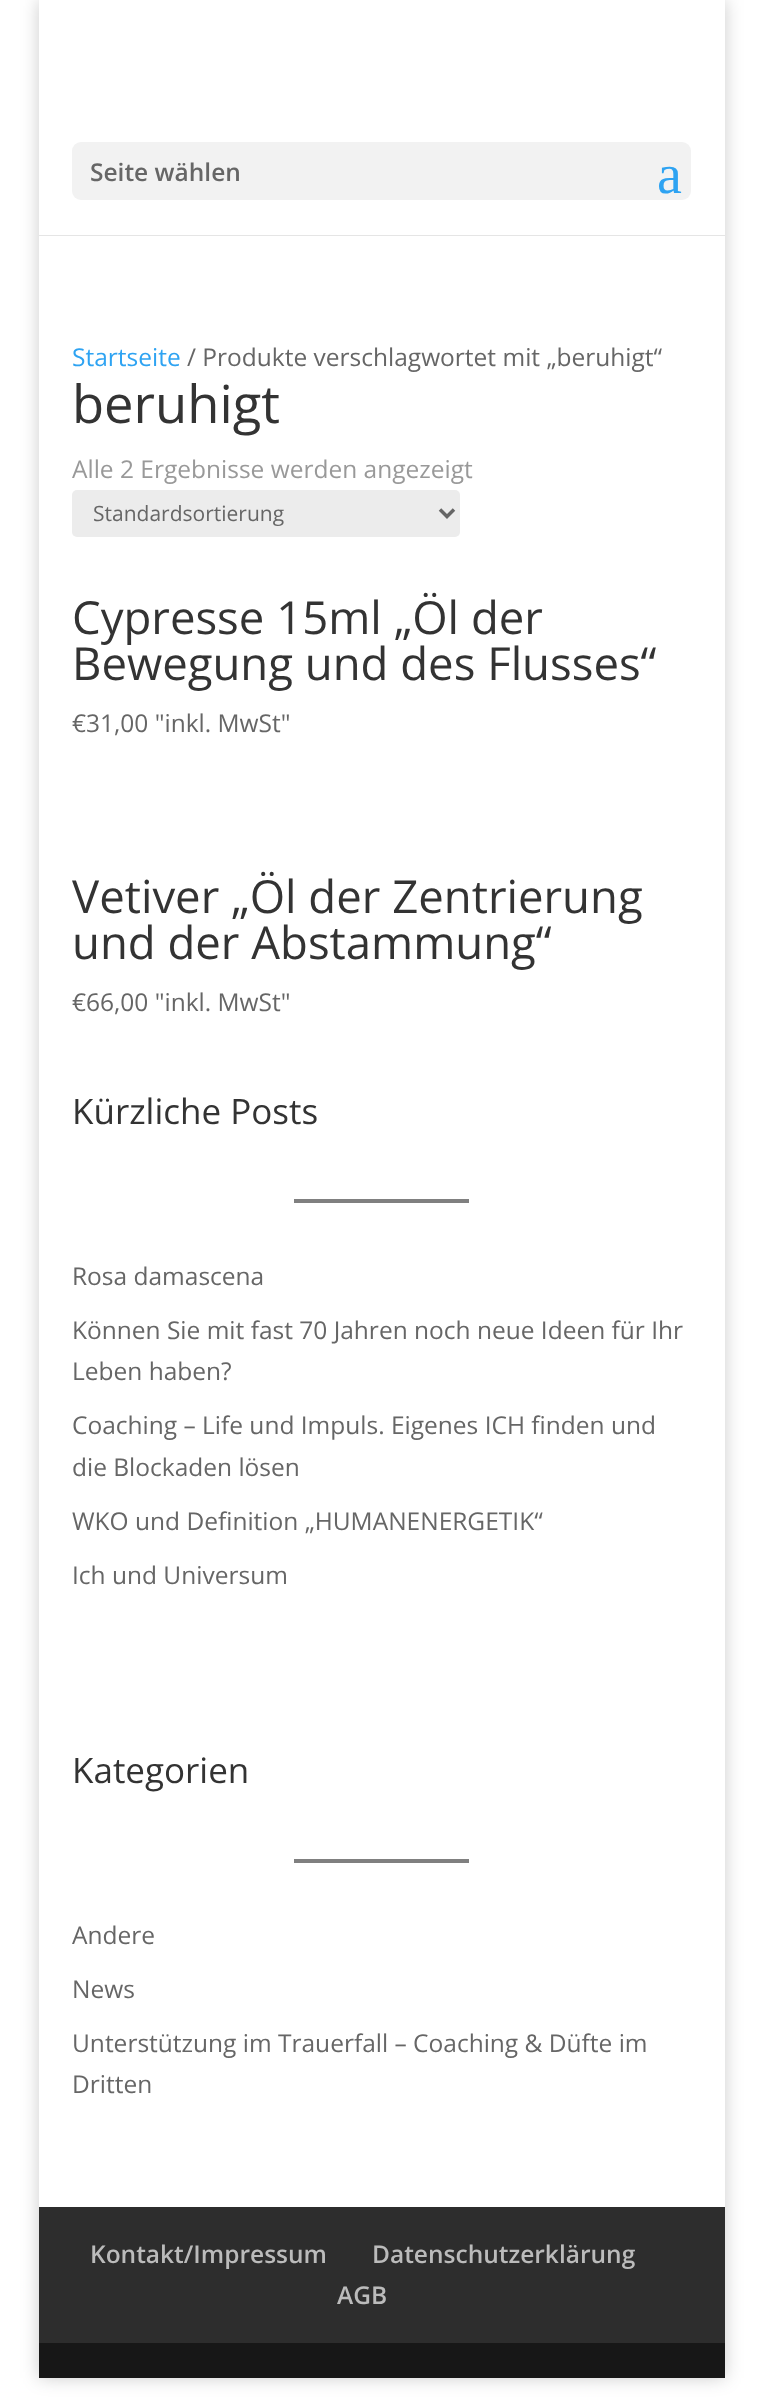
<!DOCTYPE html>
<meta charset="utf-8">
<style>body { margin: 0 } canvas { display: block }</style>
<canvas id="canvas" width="763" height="2401"></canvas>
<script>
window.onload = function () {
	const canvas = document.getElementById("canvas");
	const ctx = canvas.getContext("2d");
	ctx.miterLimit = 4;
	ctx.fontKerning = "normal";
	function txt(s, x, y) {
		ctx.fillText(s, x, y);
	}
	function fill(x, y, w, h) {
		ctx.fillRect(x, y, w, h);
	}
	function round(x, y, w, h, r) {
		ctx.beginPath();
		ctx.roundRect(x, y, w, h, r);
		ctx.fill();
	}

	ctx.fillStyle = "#FFFFFF";
	fill(0, 0, 763, 2401);
	ctx.fillStyle = "rgba(0, 0, 0, 0.2)";
	ctx.filter = "blur(9px)";
	ctx.beginPath();
	ctx.rect(39, 0, 686, 2378);
	ctx.fill();
	ctx.filter = "none";
	ctx.fillStyle = "#FFFFFF";
	fill(39, 235, 686, 1972);
	ctx.fillStyle = "rgba(0, 0, 0, 0.1)";
	ctx.beginPath();
	ctx.moveTo(39, 234);
	ctx.lineTo(39, 236);
	ctx.lineTo(725, 236);
	ctx.lineTo(725, 2);
	ctx.lineTo(724, 2);
	ctx.lineTo(724, 234);
	ctx.closePath();
	ctx.fill();
	ctx.fillStyle = "#FFFFFF";
	fill(39, 0, 686, 235);
	ctx.fillStyle = "#F2F2F2";
	round(72, 142, 619, 58, 9);
	ctx.fillStyle = "#ECECEC";
	round(72, 490, 388, 47, 5);
	ctx.beginPath();
	ctx.moveTo(440, 509.5);
	ctx.lineTo(447, 516.5);
	ctx.lineTo(454, 509.5);
	ctx.strokeStyle = "#666666";
	ctx.lineWidth = 3.5;
	ctx.stroke();
	ctx.fillStyle = "#808080";
	fill(294, 1199, 175, 4);
	fill(294, 1859, 175, 4);
	ctx.fillStyle = "#2D2D2D";
	fill(39, 2207, 686, 136);
	ctx.fillStyle = "#171717";
	fill(39, 2343, 686, 35);
	ctx.font = "600 24.5px Open Sans";
	ctx.fillStyle = "#666666";
	txt("Seite wählen", 90, 181);
	ctx.font = "56px Liberation Serif";
	ctx.fillStyle = "#2EA3F2";
	txt("a", 657, 193);
	ctx.font = "24.5px Open Sans";
	txt("Startseite", 72, 366);
	ctx.fillStyle = "#666666";
	txt("/ Produkte verschlagwortet mit „beruhigt“", 187, 366);
	ctx.font = "52.5px Open Sans";
	ctx.fillStyle = "#333333";
	txt("beruhigt", 72, 423);
	ctx.font = "24.5px Open Sans";
	ctx.fillStyle = "#999999";
	txt("Alle 2 Ergebnisse werden angezeigt", 72, 478);
	ctx.font = "21px Open Sans";
	ctx.fillStyle = "#666666";
	txt("Standardsortierung", 93, 521);
	ctx.font = "45.5px Open Sans";
	ctx.fillStyle = "#333333";
	txt("Cypresse 15ml „Öl der", 72, 634);
	txt("Bewegung und des Flusses“", 72, 680);
	ctx.font = "24.5px Open Sans";
	ctx.fillStyle = "#666666";
	txt("€31,00 \"inkl. MwSt\"", 72, 732);
	ctx.font = "45.5px Open Sans";
	ctx.fillStyle = "#333333";
	txt("Vetiver „Öl der Zentrierung", 72, 913);
	txt("und der Abstammung“", 72, 959);
	ctx.font = "24.5px Open Sans";
	ctx.fillStyle = "#666666";
	txt("€66,00 \"inkl. MwSt\"", 72, 1011);
	ctx.font = "35px Open Sans";
	ctx.fillStyle = "#333333";
	txt("Kürzliche Posts", 72, 1124);
	ctx.font = "24.5px Open Sans";
	ctx.fillStyle = "#666666";
	txt("Rosa damascena", 72, 1285);
	txt("Können Sie mit fast 70 Jahren noch neue Ideen für Ihr", 72, 1339);
	txt("Leben haben?", 72, 1380);
	txt("Coaching – Life und Impuls. Eigenes ICH finden und", 72, 1434);
	txt("die Blockaden lösen", 72, 1476);
	txt("WKO und Definition „HUMANENERGETIK“", 72, 1530);
	txt("Ich und Universum", 72, 1584);
	ctx.font = "35px Open Sans";
	ctx.fillStyle = "#333333";
	txt("Kategorien", 72, 1783);
	ctx.font = "24.5px Open Sans";
	ctx.fillStyle = "#666666";
	txt("Andere", 72, 1944);
	txt("News", 72, 1998);
	txt("Unterstützung im Trauerfall – Coaching & Düfte im", 72, 2052);
	txt("Dritten", 72, 2093);
	ctx.font = "600 24.5px Open Sans";
	ctx.fillStyle = "#BBBBBB";
	txt("Kontakt/Impressum", 90, 2263);
	txt("Datenschutzerklärung", 372, 2263);
	txt("AGB", 337, 2304);
};
</script>
